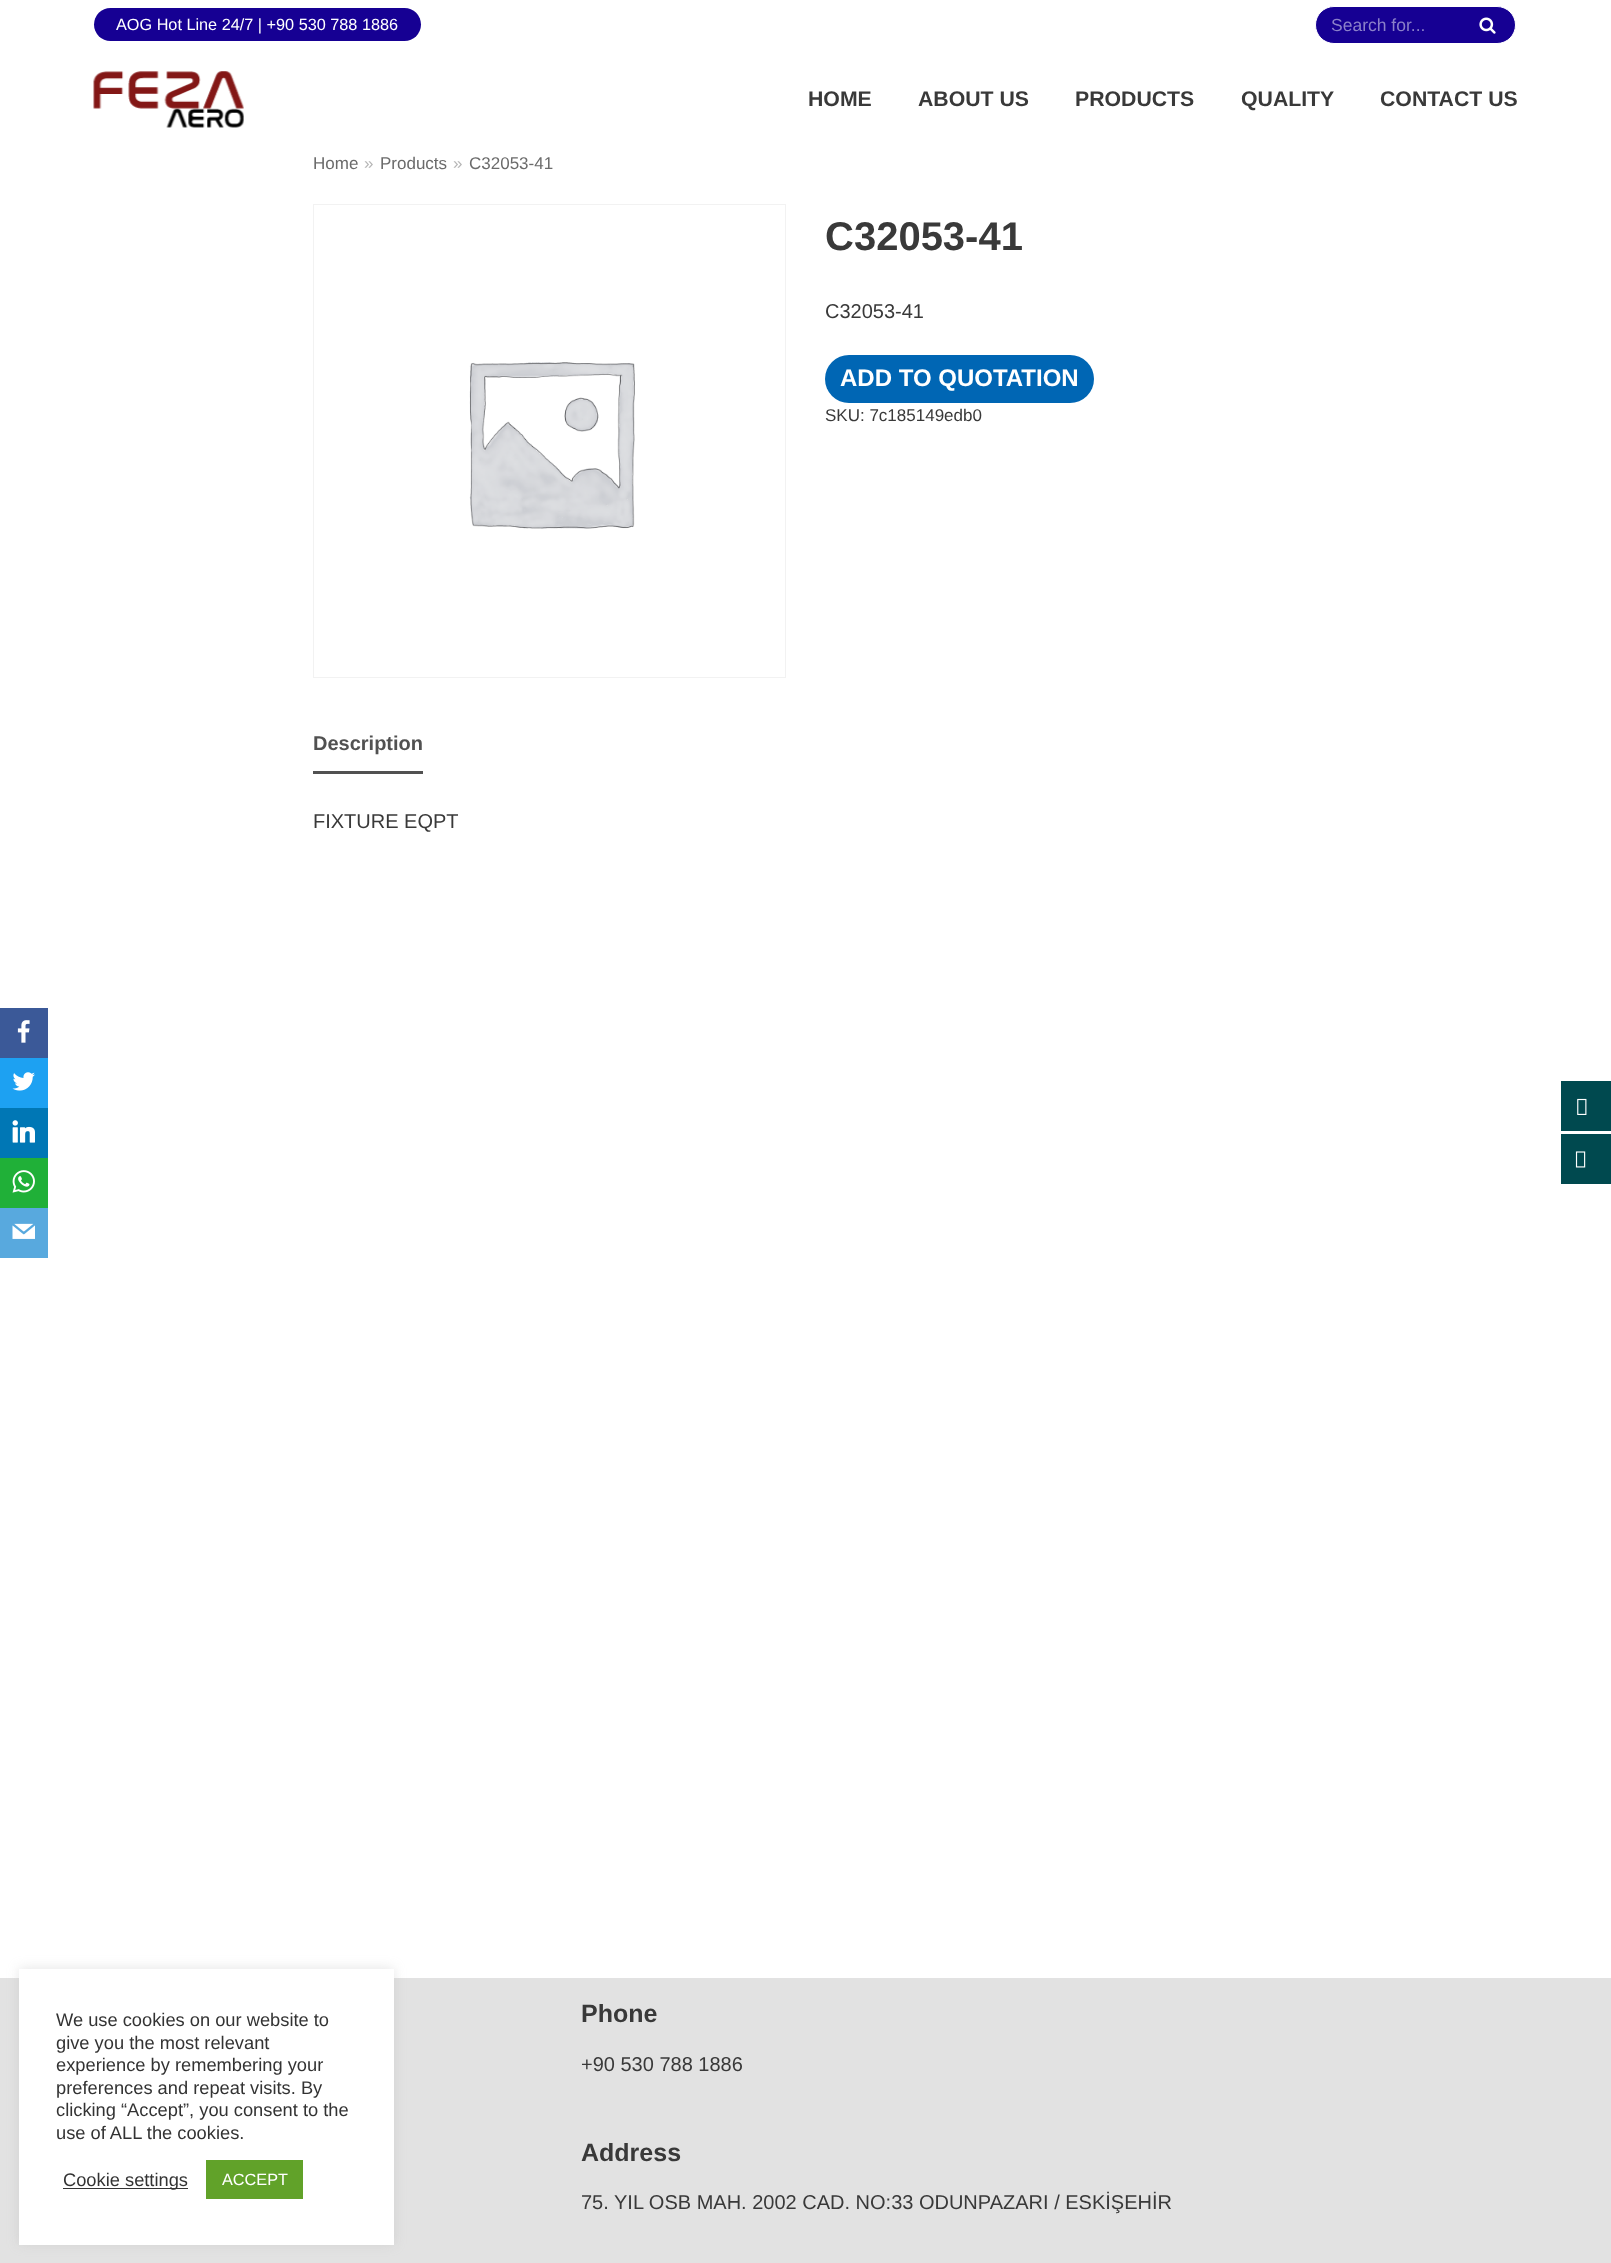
<!DOCTYPE html>
<meta charset="utf-8">
<style>body { margin: 0 } canvas { display: block }</style>
<canvas id="canvas" width="1611" height="2263"></canvas>
<img id="img1" src="img_01.png" hidden>
<img id="img2" src="img_02.png" hidden>
<img id="img3" src="img_03.png" hidden>
<img id="img4" src="img_04.png" hidden>
<img id="img5" src="img_05.png" hidden>
<img id="img6" src="img_06.png" hidden>
<img id="img7" src="img_07.png" hidden>
<img id="img8" src="img_08.png" hidden>
<img id="img9" src="img_09.png" hidden>
<img id="img10" src="img_10.png" hidden>
<script>
window.onload = function () {
	const canvas = document.getElementById("canvas");
	const ctx = canvas.getContext("2d");
	ctx.miterLimit = 4;
	ctx.fontKerning = "normal";
	function txt(s, x, y) {
		ctx.fillText(s, x, y);
	}
	function fill(x, y, w, h) {
		ctx.fillRect(x, y, w, h);
	}
	function round(x, y, w, h, r) {
		ctx.beginPath();
		ctx.roundRect(x, y, w, h, r);
		ctx.fill();
	}
	function img(id, x, y, w, h) {
		ctx.drawImage(document.getElementById(id), x, y, w, h);
	}

	ctx.fillStyle = "#FFFFFF";
	fill(0, 0, 1611, 2263);
	ctx.fillStyle = "#3B5998";
	fill(0, 1008, 48, 50);
	img("img1", 17, 1020, 13, 23);
	ctx.fillStyle = "#1DA1F2";
	fill(0, 1058, 48, 50);
	img("img2", 12, 1072, 23, 19);
	ctx.fillStyle = "#0077B5";
	fill(0, 1108, 48, 50);
	img("img3", 12, 1120, 23, 23);
	ctx.fillStyle = "#20B038";
	fill(0, 1158, 48, 50);
	img("img4", 12, 1170, 23, 23);
	ctx.fillStyle = "#58A9DE";
	fill(0, 1208, 48, 50);
	img("img5", 12, 1223, 23, 16);
	ctx.fillStyle = "#160093";
	round(94, 8, 327, 33, 16.5);
	ctx.beginPath();
	ctx.roundRect(1315.5, 6.5, 200, 37, 18.5);
	ctx.fill();
	ctx.strokeStyle = "#FFFFFF";
	ctx.stroke();
	img("img6", 1479, 17, 17, 17);
	img("img7", 93, 71, 151, 57);
	ctx.strokeStyle = "#F2F2F2";
	ctx.strokeRect(313.5, 204.5, 472, 473);
	img("img8", 469, 362, 166, 167);
	ctx.fillStyle = "#0066B4";
	round(825, 355, 269, 48, 24);
	ctx.fillStyle = "#515151";
	fill(313, 771, 110, 3);
	ctx.fillStyle = "#E2E2E2";
	fill(0, 1978, 1611, 285);
	ctx.fillStyle = "#00494F";
	fill(1561, 1081, 50, 50);
	img("img9", 1577, 1098, 10, 17);
	fill(1561, 1134, 50, 50);
	img("img10", 1575, 1151, 11, 17);
	ctx.fillStyle = "rgba(172, 171, 171, 0.3)";
	ctx.filter = "blur(6px)";
	ctx.beginPath();
	ctx.rect(19, 1968, 375, 276);
	ctx.fill();
	ctx.filter = "none";
	ctx.fillStyle = "#FFFFFF";
	fill(19, 1969, 375, 276);
	ctx.fillStyle = "#333333";
	fill(63, 2188, 125, 1);
	ctx.fillStyle = "#61A229";
	fill(206, 2160, 97, 39);
	ctx.font = "16.25px Liberation Sans";
	ctx.fillStyle = "#FFFFFF";
	txt("AOG Hot Line 24/7 | +90 530 788 1886", 116, 30);
	ctx.font = "17.5px Liberation Sans";
	ctx.fillStyle = "#8B80C9";
	txt("Search for...", 1331, 31);
	ctx.font = "bold 21.25px Liberation Sans";
	ctx.fillStyle = "#393939";
	txt("HOME", 808, 106);
	txt("ABOUT US", 918, 106);
	txt("PRODUCTS", 1075, 106);
	txt("QUALITY", 1241, 106);
	txt("CONTACT US", 1380, 106);
	ctx.font = "17px Liberation Sans";
	ctx.fillStyle = "#6B6B6B";
	txt("Home", 313, 169);
	ctx.fillStyle = "#B5B5B5";
	txt("»", 364, 169);
	ctx.fillStyle = "#6B6B6B";
	txt("Products", 380, 169);
	ctx.fillStyle = "#B5B5B5";
	txt("»", 453, 169);
	ctx.fillStyle = "#6B6B6B";
	txt("C32053-41", 469, 169);
	ctx.font = "bold 40px Liberation Sans";
	ctx.fillStyle = "#393939";
	txt("C32053-41", 825, 250);
	ctx.font = "20px Liberation Sans";
	txt("C32053-41", 825, 318);
	ctx.font = "bold 24px Liberation Sans";
	ctx.fillStyle = "#FFFFFF";
	txt("ADD TO QUOTATION", 840, 386);
	ctx.font = "17px Liberation Sans";
	ctx.fillStyle = "#393939";
	txt("SKU: 7c185149edb0", 825, 421);
	ctx.font = "bold 20px Liberation Sans";
	ctx.fillStyle = "#515151";
	txt("Description", 313, 750);
	ctx.font = "20px Liberation Sans";
	ctx.fillStyle = "#393939";
	txt("FIXTURE EQPT", 313, 828);
	ctx.font = "bold 25px Liberation Sans";
	txt("Phone", 581, 2022);
	ctx.font = "20px Liberation Sans";
	txt("+90 530 788 1886", 581, 2071);
	ctx.font = "bold 25px Liberation Sans";
	txt("Address", 581, 2161);
	ctx.font = "20px Liberation Sans";
	txt("75. YIL OSB MAH. 2002 CAD. NO:33 ODUNPAZARI / ESKİŞEHİR", 581, 2209);
	ctx.font = "18.3px Liberation Sans";
	ctx.fillStyle = "#333333";
	txt("We use cookies on our website to", 56, 2026);
	txt("give you the most relevant", 56, 2049);
	txt("experience by remembering your", 56, 2071);
	txt("preferences and repeat visits. By", 56, 2094);
	txt("clicking “Accept”, you consent to the", 56, 2116);
	txt("use of ALL the cookies.", 56, 2139);
	txt("Cookie settings", 63, 2186);
	ctx.font = "16.25px Liberation Sans";
	ctx.fillStyle = "#FFFFFF";
	txt("ACCEPT", 222, 2185);
};
</script>
